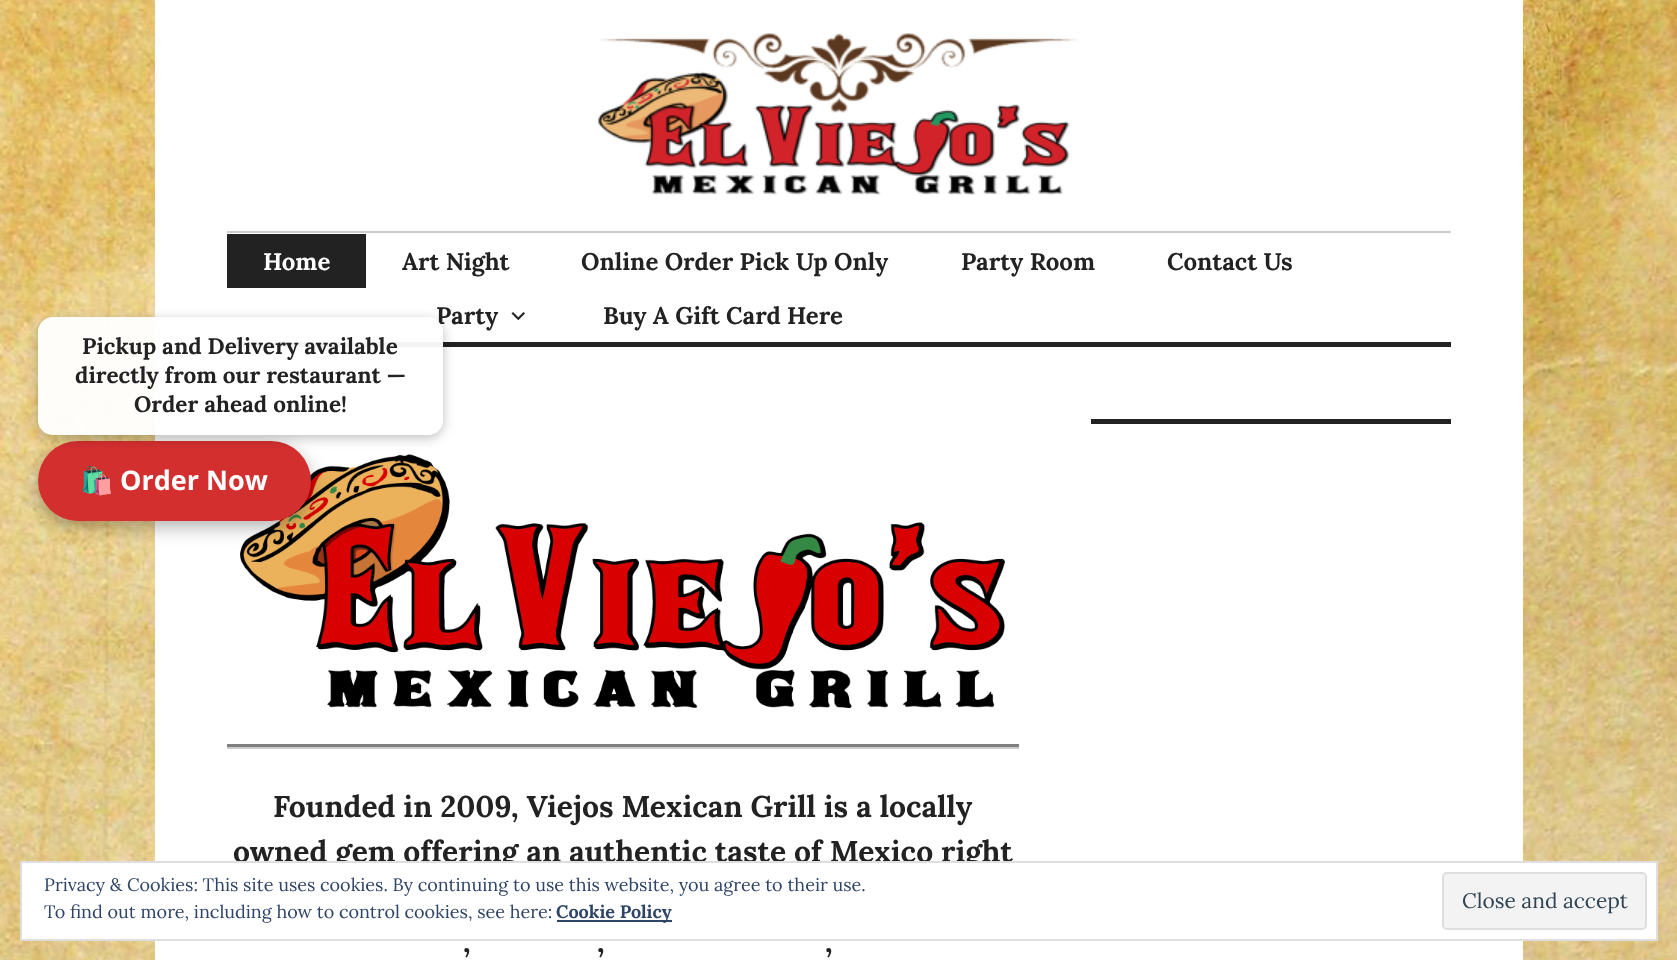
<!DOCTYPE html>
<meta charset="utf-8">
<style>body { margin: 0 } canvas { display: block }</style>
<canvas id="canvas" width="1677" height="960"></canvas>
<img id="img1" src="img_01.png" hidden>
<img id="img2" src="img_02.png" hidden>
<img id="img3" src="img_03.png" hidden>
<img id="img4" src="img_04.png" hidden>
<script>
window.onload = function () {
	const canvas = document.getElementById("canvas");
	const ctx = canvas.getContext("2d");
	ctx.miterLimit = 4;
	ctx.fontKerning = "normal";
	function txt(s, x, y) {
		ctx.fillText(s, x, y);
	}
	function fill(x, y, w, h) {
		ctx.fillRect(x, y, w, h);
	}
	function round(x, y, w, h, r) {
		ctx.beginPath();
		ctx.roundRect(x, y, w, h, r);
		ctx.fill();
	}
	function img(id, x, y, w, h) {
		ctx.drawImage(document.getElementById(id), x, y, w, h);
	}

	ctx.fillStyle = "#FFFFFF";
	fill(0, 0, 1677, 960);
	img("img1", 0, 0, 1677, 960);
	fill(155, 0, 1368, 960);
	img("img2", 598, 33, 480, 162);
	ctx.fillStyle = "#CCCCCC";
	fill(227, 231, 1224, 2);
	ctx.fillStyle = "#222222";
	fill(227, 342, 1224, 5);
	fill(227, 234, 139, 54);
	img("img3", 511, 312, 14, 9);
	img("img4", 240, 454, 765, 254);
	ctx.fillStyle = "rgba(0, 0, 0, 0.3)";
	ctx.filter = "blur(9px)";
	ctx.beginPath();
	ctx.roundRect(38, 447, 273, 80, 40);
	ctx.fill();
	ctx.filter = "none";
	ctx.fillStyle = "#D32F2F";
	round(38, 441, 273, 80, 40);
	ctx.save();
	ctx.beginPath();
	ctx.moveTo(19, 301);
	ctx.lineTo(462, 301);
	ctx.lineTo(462, 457);
	ctx.lineTo(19, 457);
	ctx.closePath();
	ctx.moveTo(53, 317);
	ctx.lineTo(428, 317);
	ctx.bezierCurveTo(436.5, 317, 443, 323.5, 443, 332);
	ctx.lineTo(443, 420);
	ctx.bezierCurveTo(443, 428.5, 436.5, 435, 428, 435);
	ctx.lineTo(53, 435);
	ctx.bezierCurveTo(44.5, 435, 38, 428.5, 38, 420);
	ctx.lineTo(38, 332);
	ctx.bezierCurveTo(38, 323.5, 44.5, 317, 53, 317);
	ctx.closePath();
	ctx.clip("evenodd");
	ctx.fillStyle = "rgba(0, 0, 0, 0.25)";
	ctx.filter = "blur(6px)";
	ctx.beginPath();
	ctx.roundRect(38, 320, 405, 118, 15);
	ctx.fill();
	ctx.filter = "none";
	ctx.restore();
	ctx.fillStyle = "#222222";
	fill(1091, 419, 360, 5);
	ctx.fillStyle = "#CCCCCC";
	fill(227, 747, 792, 2);
	ctx.fillStyle = "#808080";
	fill(227, 744, 792, 3);
	ctx.font = "bold 24px Lora";
	ctx.fillStyle = "#FFFFFF";
	txt("Home", 263, 270);
	ctx.fillStyle = "#222222";
	txt("Art Night", 402, 270);
	txt("Online Order Pick Up Only", 581, 270);
	txt("Party Room", 961, 270);
	txt("Contact Us", 1167, 270);
	txt("Party", 436, 324);
	txt("Buy A Gift Card Here", 603, 324);
	ctx.fillStyle = "rgba(255, 255, 255, 0.95)";
	round(38, 317, 405, 118, 15);
	ctx.font = "bold 22.5px Lora";
	ctx.fillStyle = "#222222";
	txt("Pickup and Delivery available", 82, 354);
	txt("directly from our restaurant —", 75, 383);
	txt("Order ahead online!", 134, 412);
	ctx.font = "bold 27px Noto Color Emoji";
	ctx.fillStyle = "#FFFFFF";
	txt("🛍️", 80, 490);
	ctx.font = "bold 27px Open Sans";
	txt("Order Now", 120, 490);
	ctx.font = "bold 30px Lora";
	ctx.fillStyle = "#222222";
	txt("Founded in 2009, Viejos Mexican Grill is a locally", 273, 817);
	txt("owned gem offering an authentic taste of Mexico right", 233, 862);
	txt(",", 463, 952);
	txt(",", 597, 952);
	txt(",", 825, 952);
	ctx.fillStyle = "#FFFFFF";
	ctx.beginPath();
	ctx.rect(21, 862, 1636, 78);
	ctx.fill();
	ctx.strokeStyle = "#DEDEDE";
	ctx.lineWidth = 2;
	ctx.stroke();
	ctx.font = "18px Lora";
	ctx.fillStyle = "#2E4467";
	txt("Privacy & Cookies: This site uses cookies. By continuing to use this website, you agree to their use.", 44, 891);
	txt("To find out more, including how to control cookies, see here:", 44, 918);
	fill(557, 920, 115, 2);
	ctx.font = "bold 18px Lora";
	txt("Cookie Policy", 556, 918);
	ctx.fillStyle = "#F3F3F3";
	ctx.beginPath();
	ctx.roundRect(1443, 873, 203, 56, 4);
	ctx.fill();
	ctx.stroke();
	ctx.font = "21px Lora";
	ctx.fillStyle = "#2E4453";
	txt("Close and accept", 1462, 908);
};
</script>
